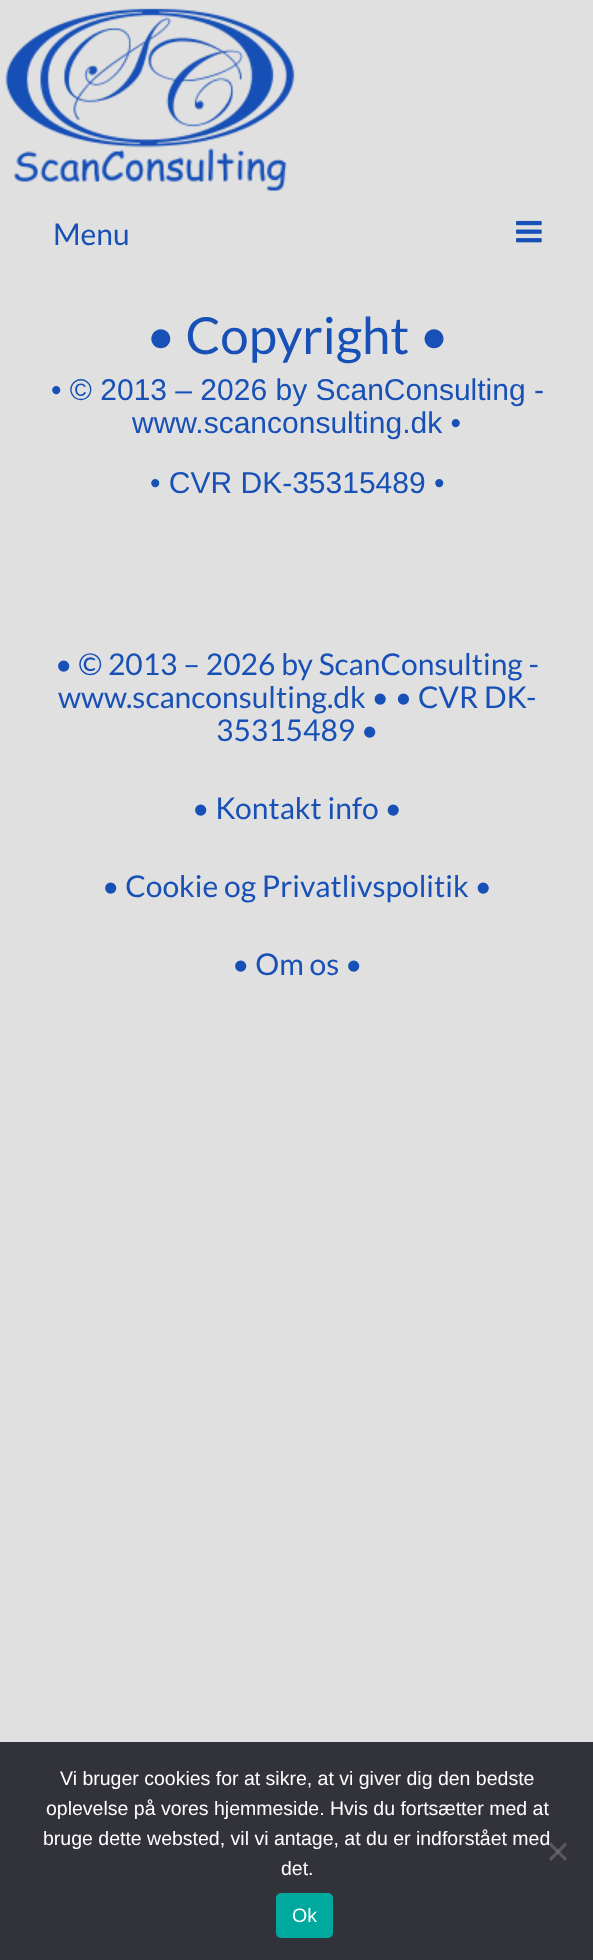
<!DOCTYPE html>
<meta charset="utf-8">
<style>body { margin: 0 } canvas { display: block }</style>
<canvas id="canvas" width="593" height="1960"></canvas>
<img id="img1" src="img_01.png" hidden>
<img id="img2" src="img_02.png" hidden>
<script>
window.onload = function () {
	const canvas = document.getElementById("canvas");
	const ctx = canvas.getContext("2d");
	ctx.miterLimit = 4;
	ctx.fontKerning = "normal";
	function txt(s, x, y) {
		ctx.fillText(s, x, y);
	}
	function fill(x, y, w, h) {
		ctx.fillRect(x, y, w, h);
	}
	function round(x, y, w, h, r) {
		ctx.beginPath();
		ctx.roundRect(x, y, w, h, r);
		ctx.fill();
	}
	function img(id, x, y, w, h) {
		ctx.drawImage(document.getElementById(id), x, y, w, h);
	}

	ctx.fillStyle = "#E0E0E0";
	fill(0, 0, 593, 1960);
	img("img1", 5, 8, 290, 184);
	img("img2", 516, 220, 26, 23);
	ctx.fillStyle = "#32323A";
	fill(0, 1742, 593, 218);
	ctx.fillStyle = "#00A99D";
	round(276, 1893, 57, 45, 5);
	ctx.font = "30px Lato";
	ctx.fillStyle = "#1750B6";
	txt("Menu", 53, 245);
	ctx.font = "51px Lato";
	txt("• Copyright •", 146, 354);
	ctx.font = "30px Liberation Sans";
	txt("• © 2013 – 2026 by ScanConsulting -", 51, 400);
	txt("www.scanconsulting.dk •", 132, 433);
	txt("• CVR DK-35315489 •", 150, 493);
	ctx.font = "30px Lato";
	txt("• © 2013 – 2026 by ScanConsulting -", 55, 675);
	txt("www.scanconsulting.dk • • CVR DK-", 58, 708);
	txt("35315489 •", 216, 741);
	txt("• Kontakt info •", 192, 819);
	txt("• Cookie og Privatlivspolitik •", 102, 897);
	txt("• Om os •", 232, 975);
	ctx.font = "19.5px Liberation Sans";
	ctx.fillStyle = "#FFFFFF";
	txt("Vi bruger cookies for at sikre, at vi giver dig den bedste", 60, 1785);
	txt("oplevelse på vores hjemmeside. Hvis du fortsætter med at", 46, 1815);
	txt("bruge dette websted, vil vi antage, at du er indforstået med", 43, 1845);
	txt("det.", 281, 1875);
	ctx.fillStyle = "#59595D";
	ctx.beginPath();
	ctx.moveTo(565, 1842.5);
	ctx.lineTo(567, 1845);
	ctx.lineTo(551, 1861);
	ctx.lineTo(549, 1858.5);
	ctx.closePath();
	ctx.fill();
	ctx.fillStyle = "rgba(128, 128, 128, 0.5)";
	ctx.beginPath();
	ctx.moveTo(549, 1845);
	ctx.lineTo(551, 1842.5);
	ctx.lineTo(567, 1858.5);
	ctx.lineTo(565, 1861);
	ctx.closePath();
	ctx.fill();
	ctx.fillStyle = "#FFFFFF";
	txt("Ok", 292, 1922);
};
</script>
